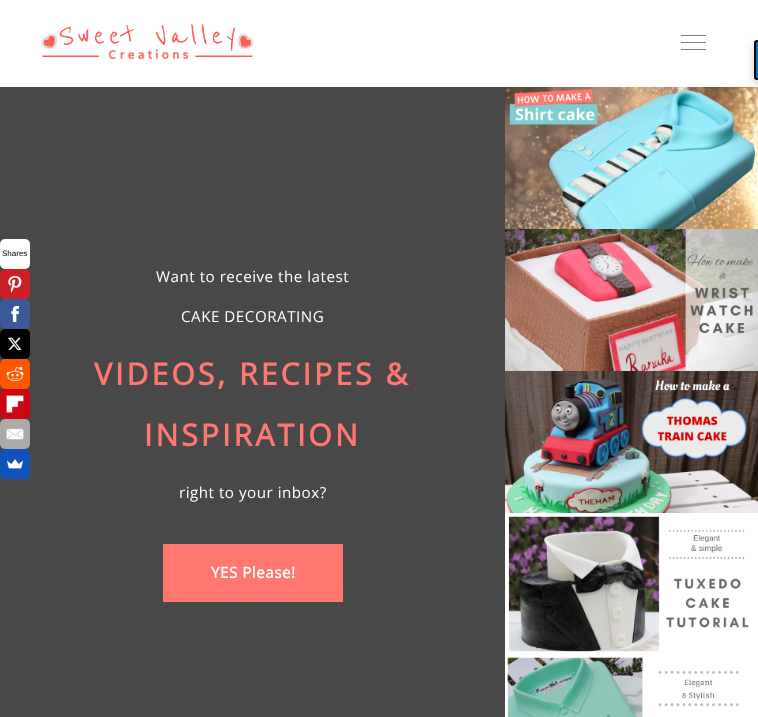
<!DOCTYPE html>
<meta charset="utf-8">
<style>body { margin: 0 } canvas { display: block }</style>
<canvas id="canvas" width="758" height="717"></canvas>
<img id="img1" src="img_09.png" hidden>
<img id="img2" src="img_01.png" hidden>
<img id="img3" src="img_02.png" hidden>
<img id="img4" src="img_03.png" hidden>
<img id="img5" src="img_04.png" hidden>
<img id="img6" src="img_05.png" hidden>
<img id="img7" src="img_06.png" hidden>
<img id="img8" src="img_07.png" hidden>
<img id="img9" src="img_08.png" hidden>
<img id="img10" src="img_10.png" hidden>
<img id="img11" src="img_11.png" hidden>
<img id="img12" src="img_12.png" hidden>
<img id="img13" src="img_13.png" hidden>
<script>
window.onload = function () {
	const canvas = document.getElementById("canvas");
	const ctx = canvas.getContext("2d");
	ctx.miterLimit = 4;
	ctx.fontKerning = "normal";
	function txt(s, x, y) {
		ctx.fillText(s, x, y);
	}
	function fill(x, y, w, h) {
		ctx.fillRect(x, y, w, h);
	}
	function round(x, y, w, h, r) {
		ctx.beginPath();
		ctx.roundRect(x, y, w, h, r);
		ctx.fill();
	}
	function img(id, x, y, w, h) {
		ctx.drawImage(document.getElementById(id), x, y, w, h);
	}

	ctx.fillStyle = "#FFFFFF";
	fill(0, 0, 758, 717);
	img("img1", 505, 87, 253, 142);
	ctx.fillStyle = "rgba(0, 0, 0, 0.2)";
	ctx.filter = "blur(5px)";
	ctx.beginPath();
	ctx.roundRect(754, 44, 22, 40, 3);
	ctx.fill();
	ctx.filter = "none";
	ctx.fillStyle = "#0073B7";
	ctx.beginPath();
	ctx.moveTo(757, 41);
	ctx.lineTo(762, 41);
	ctx.lineTo(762, 79);
	ctx.lineTo(757, 79);
	ctx.bezierCurveTo(756, 79, 755, 78, 755, 77);
	ctx.lineTo(755, 43);
	ctx.bezierCurveTo(755, 42, 756, 41, 757, 41);
	ctx.closePath();
	ctx.fill();
	ctx.strokeStyle = "#000000";
	ctx.lineWidth = 2;
	ctx.stroke();
	ctx.fillStyle = "#484848";
	fill(0, 87, 505, 630);
	ctx.fillStyle = "#FFFFFF";
	round(0, 239, 30, 30, 5);
	ctx.fillStyle = "#CB2027";
	round(0, 269, 30, 30, 5);
	img("img2", 8, 276, 14, 17);
	ctx.fillStyle = "#3B5998";
	round(0, 299, 30, 30, 5);
	img("img3", 11, 306, 8, 16);
	ctx.fillStyle = "#000000";
	round(0, 329, 30, 30, 5);
	img("img4", 7, 337, 15, 13);
	ctx.fillStyle = "#FF5700";
	round(0, 359, 30, 30, 5);
	img("img5", 6, 366, 18, 16);
	ctx.fillStyle = "#CC0713";
	round(0, 389, 30, 30, 5);
	img("img6", 6, 395, 18, 18);
	ctx.fillStyle = "#AAAAAA";
	round(0, 419, 30, 30, 5);
	img("img7", 6, 428, 18, 12);
	ctx.fillStyle = "#0F52BA";
	round(0, 449, 30, 30, 5);
	img("img8", 7, 459, 16, 10);
	img("img9", 41, 24, 213, 36);
	ctx.fillStyle = "#808080";
	fill(681, 35, 25, 1);
	fill(681, 42, 25, 1);
	fill(681, 49, 25, 1);
	ctx.fillStyle = "#FF7770";
	fill(163, 544, 180, 58);
	img("img10", 505, 229, 253, 142);
	img("img11", 505, 371, 253, 142);
	img("img12", 508, 516, 241, 136);
	img("img13", 507, 655, 232, 62);
	ctx.font = "8px Liberation Sans";
	ctx.fillStyle = "#000000";
	txt("Shares", 2, 256);
	ctx.letterSpacing = "0.5px";
	ctx.font = "15.2px Open Sans";
	ctx.fillStyle = "#FFFFFF";
	txt("Want to receive the latest", 156, 282);
	txt("CAKE DECORATING", 181, 322);
	ctx.letterSpacing = "3px";
	ctx.font = "bold 30.25px Open Sans";
	ctx.fillStyle = "#FF7770";
	txt("VIDEOS, RECIPES &", 94, 385);
	txt("INSPIRATION", 144, 446);
	ctx.letterSpacing = "0.5px";
	ctx.font = "15.2px Open Sans";
	ctx.fillStyle = "#FFFFFF";
	txt("right to your inbox?", 179, 498);
	ctx.font = "bold 15.2px Open Sans";
	txt("YES Please!", 211, 578);
};
</script>
